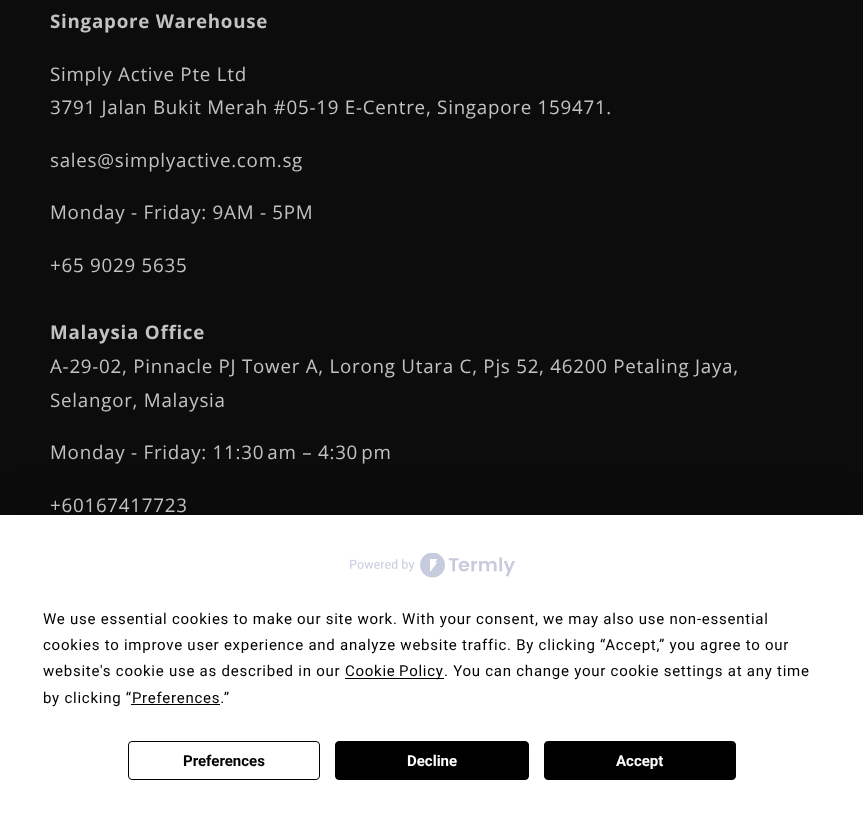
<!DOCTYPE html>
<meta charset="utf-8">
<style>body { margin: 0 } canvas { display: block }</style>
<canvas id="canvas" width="863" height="817"></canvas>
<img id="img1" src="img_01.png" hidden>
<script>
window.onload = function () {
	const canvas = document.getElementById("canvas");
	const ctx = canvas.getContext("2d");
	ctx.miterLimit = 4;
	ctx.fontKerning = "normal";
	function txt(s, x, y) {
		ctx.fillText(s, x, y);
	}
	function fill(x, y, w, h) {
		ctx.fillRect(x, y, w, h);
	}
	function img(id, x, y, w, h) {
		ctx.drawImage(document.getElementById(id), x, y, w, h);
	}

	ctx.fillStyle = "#0C0C0C";
	fill(0, 0, 863, 817);
	ctx.fillStyle = "rgba(0, 0, 0, 0.25)";
	ctx.filter = "blur(22px)";
	ctx.beginPath();
	ctx.rect(0, 515, 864, 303);
	ctx.fill();
	ctx.filter = "none";
	ctx.fillStyle = "#FFFFFF";
	fill(0, 515, 863, 302);
	img("img1", 350, 553, 165, 25);
	ctx.fillStyle = "#000000";
	fill(345, 678, 99, 1);
	fill(131, 704, 89, 1);
	ctx.beginPath();
	ctx.roundRect(128.5, 741.5, 191, 38, 3.5);
	ctx.strokeStyle = "#000000";
	ctx.stroke();
	ctx.beginPath();
	ctx.roundRect(335.5, 741.5, 193, 38, 3.5);
	ctx.fill();
	ctx.stroke();
	ctx.beginPath();
	ctx.roundRect(544.5, 741.5, 191, 38, 3.5);
	ctx.fill();
	ctx.stroke();
	ctx.letterSpacing = "0.75px";
	ctx.font = "bold 18.75px Open Sans";
	ctx.fillStyle = "#C2C2C2";
	txt("Singapore Warehouse", 50, 28);
	ctx.font = "18.75px Open Sans";
	txt("Simply Active Pte Ltd", 50, 81);
	txt("3791 Jalan Bukit Merah #05-19 E-Centre, Singapore 159471.", 50, 114);
	txt("sales@simplyactive.com.sg", 50, 167);
	txt("Monday - Friday: 9AM - 5PM", 50, 219);
	txt("+65 9029 5635", 50, 272);
	ctx.font = "bold 18.75px Open Sans";
	txt("Malaysia Office", 50, 339);
	ctx.font = "18.75px Open Sans";
	txt("A-29-02, Pinnacle PJ Tower A, Lorong Utara C, Pjs 52, 46200 Petaling Jaya,", 50, 373);
	txt("Selangor, Malaysia", 50, 407);
	txt("Monday - Friday: 11:30 am – 4:30 pm", 50, 459);
	txt("+60167417723", 50, 512);
	ctx.font = "15px Roboto";
	ctx.fillStyle = "#000000";
	txt("We use essential cookies to make our site work. With your consent, we may also use non-essential", 43, 624);
	txt("cookies to improve user experience and analyze website traffic. By clicking “Accept,” you agree to our", 43, 650);
	txt("website's cookie use as described in our", 43, 676);
	ctx.wordSpacing = "-1px";
	txt("Cookie Policy", 345, 676);
	ctx.wordSpacing = "0px";
	txt(". You can change your cookie settings at any time", 444, 676);
	txt("by clicking “Preferences.”", 43, 703);
	ctx.letterSpacing = "0px";
	ctx.font = "bold 15px Roboto";
	txt("Preferences", 183, 766);
	ctx.fillStyle = "#FFFFFF";
	txt("Decline", 407, 766);
	txt("Accept", 616, 766);
};
</script>
